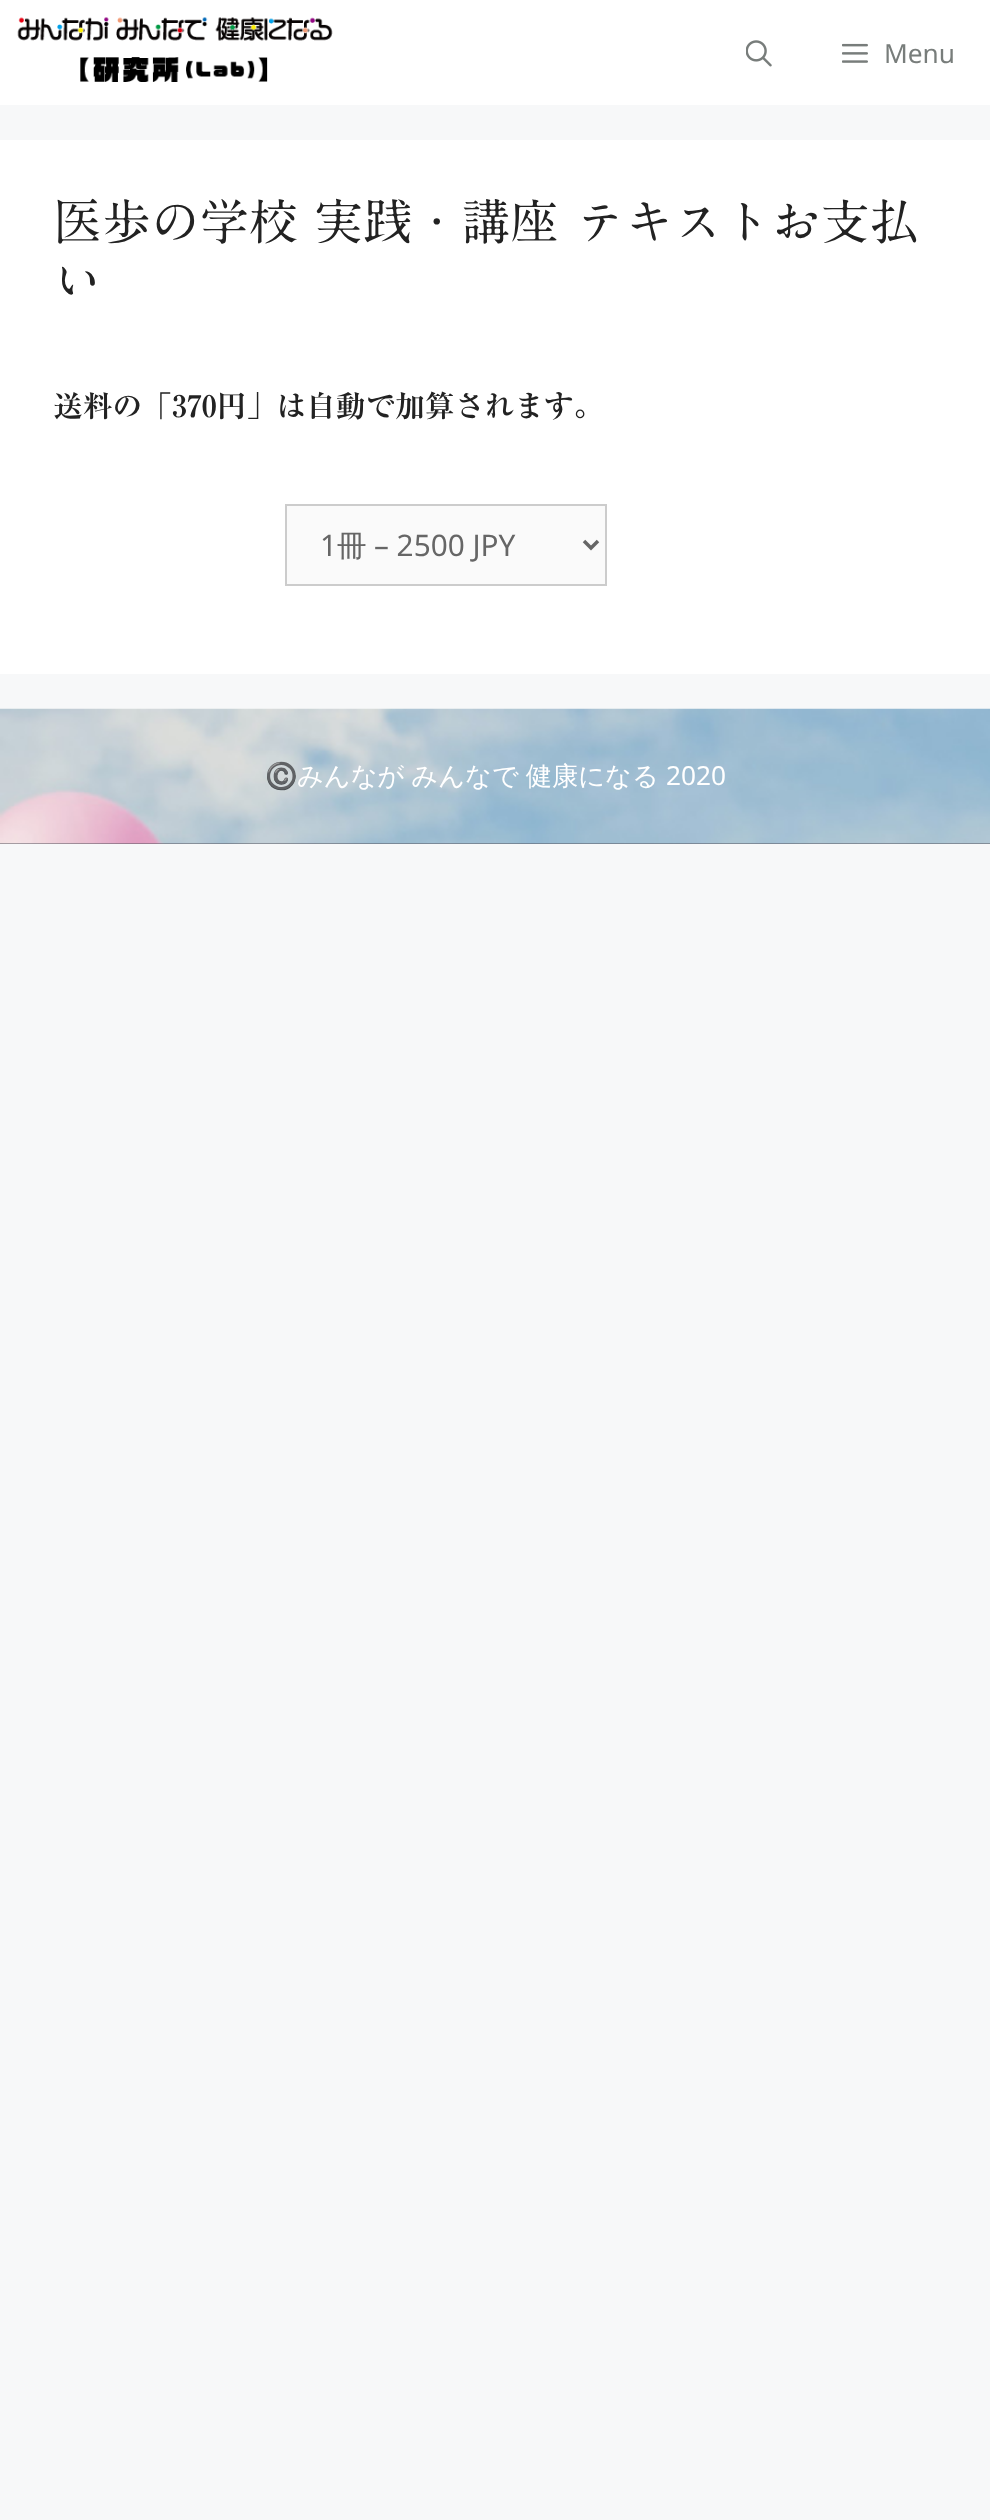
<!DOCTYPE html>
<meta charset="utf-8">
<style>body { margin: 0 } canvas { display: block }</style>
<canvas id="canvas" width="990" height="2520"></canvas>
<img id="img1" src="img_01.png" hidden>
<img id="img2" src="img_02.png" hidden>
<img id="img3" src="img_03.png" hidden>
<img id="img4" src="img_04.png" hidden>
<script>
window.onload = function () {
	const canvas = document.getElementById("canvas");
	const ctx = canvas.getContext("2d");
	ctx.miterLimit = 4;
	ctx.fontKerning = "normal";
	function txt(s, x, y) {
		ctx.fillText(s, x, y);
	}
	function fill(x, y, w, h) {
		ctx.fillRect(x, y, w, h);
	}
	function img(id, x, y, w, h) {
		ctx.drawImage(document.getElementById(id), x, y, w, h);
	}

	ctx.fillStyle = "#F7F8F9";
	fill(0, 0, 990, 2520);
	ctx.fillStyle = "#FFFFFF";
	fill(0, 0, 990, 105);
	img("img1", 17, 17, 316, 65);
	img("img2", 746, 40, 26, 27);
	img("img3", 842, 43, 26, 20);
	fill(0, 140, 990, 534);
	ctx.fillStyle = "#FAFAFA";
	ctx.beginPath();
	ctx.rect(286, 505, 320, 80);
	ctx.fill();
	ctx.strokeStyle = "#CCCCCC";
	ctx.lineWidth = 2;
	ctx.stroke();
	ctx.beginPath();
	ctx.moveTo(584, 541);
	ctx.lineTo(591, 548);
	ctx.lineTo(598, 541);
	ctx.strokeStyle = "#666666";
	ctx.lineWidth = 3.5;
	ctx.stroke();
	ctx.fillStyle = "#55555E";
	fill(0, 843, 990, 1);
	img("img4", 0, 708, 990, 136);
	ctx.font = "26.25px Noto Sans";
	ctx.fillStyle = "#787D7B";
	txt("Menu", 884, 63);
	ctx.font = "49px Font";
	ctx.fillStyle = "#222222";
	txt("医歩の学校 実践・講座 テキストお支払", 53, 240);
	txt("い", 53, 299);
	ctx.font = "500 29.75px Font";
	txt("送料の「370円」は自動で加算されます。", 53, 417);
	ctx.font = "29.75px Noto Sans";
	ctx.fillStyle = "#666666";
	txt("1", 320, 556);
	ctx.font = "500 29.75px WenQuanYi Zen Hei";
	txt("冊", 337, 556);
	ctx.font = "29.75px Noto Sans";
	txt("– 2500 JPY", 374, 556);
	ctx.font = "26.25px Noto Color Emoji";
	ctx.fillStyle = "#FFFFFF";
	txt("©️", 265, 785);
	ctx.wordSpacing = "-1px";
	ctx.font = "500 26.25px WenQuanYi Zen Hei";
	txt("みんなが みんなで 健康になる", 297, 785);
	ctx.wordSpacing = "0px";
	ctx.font = "26.25px Noto Sans";
	txt("2020", 666, 785);
};
</script>
